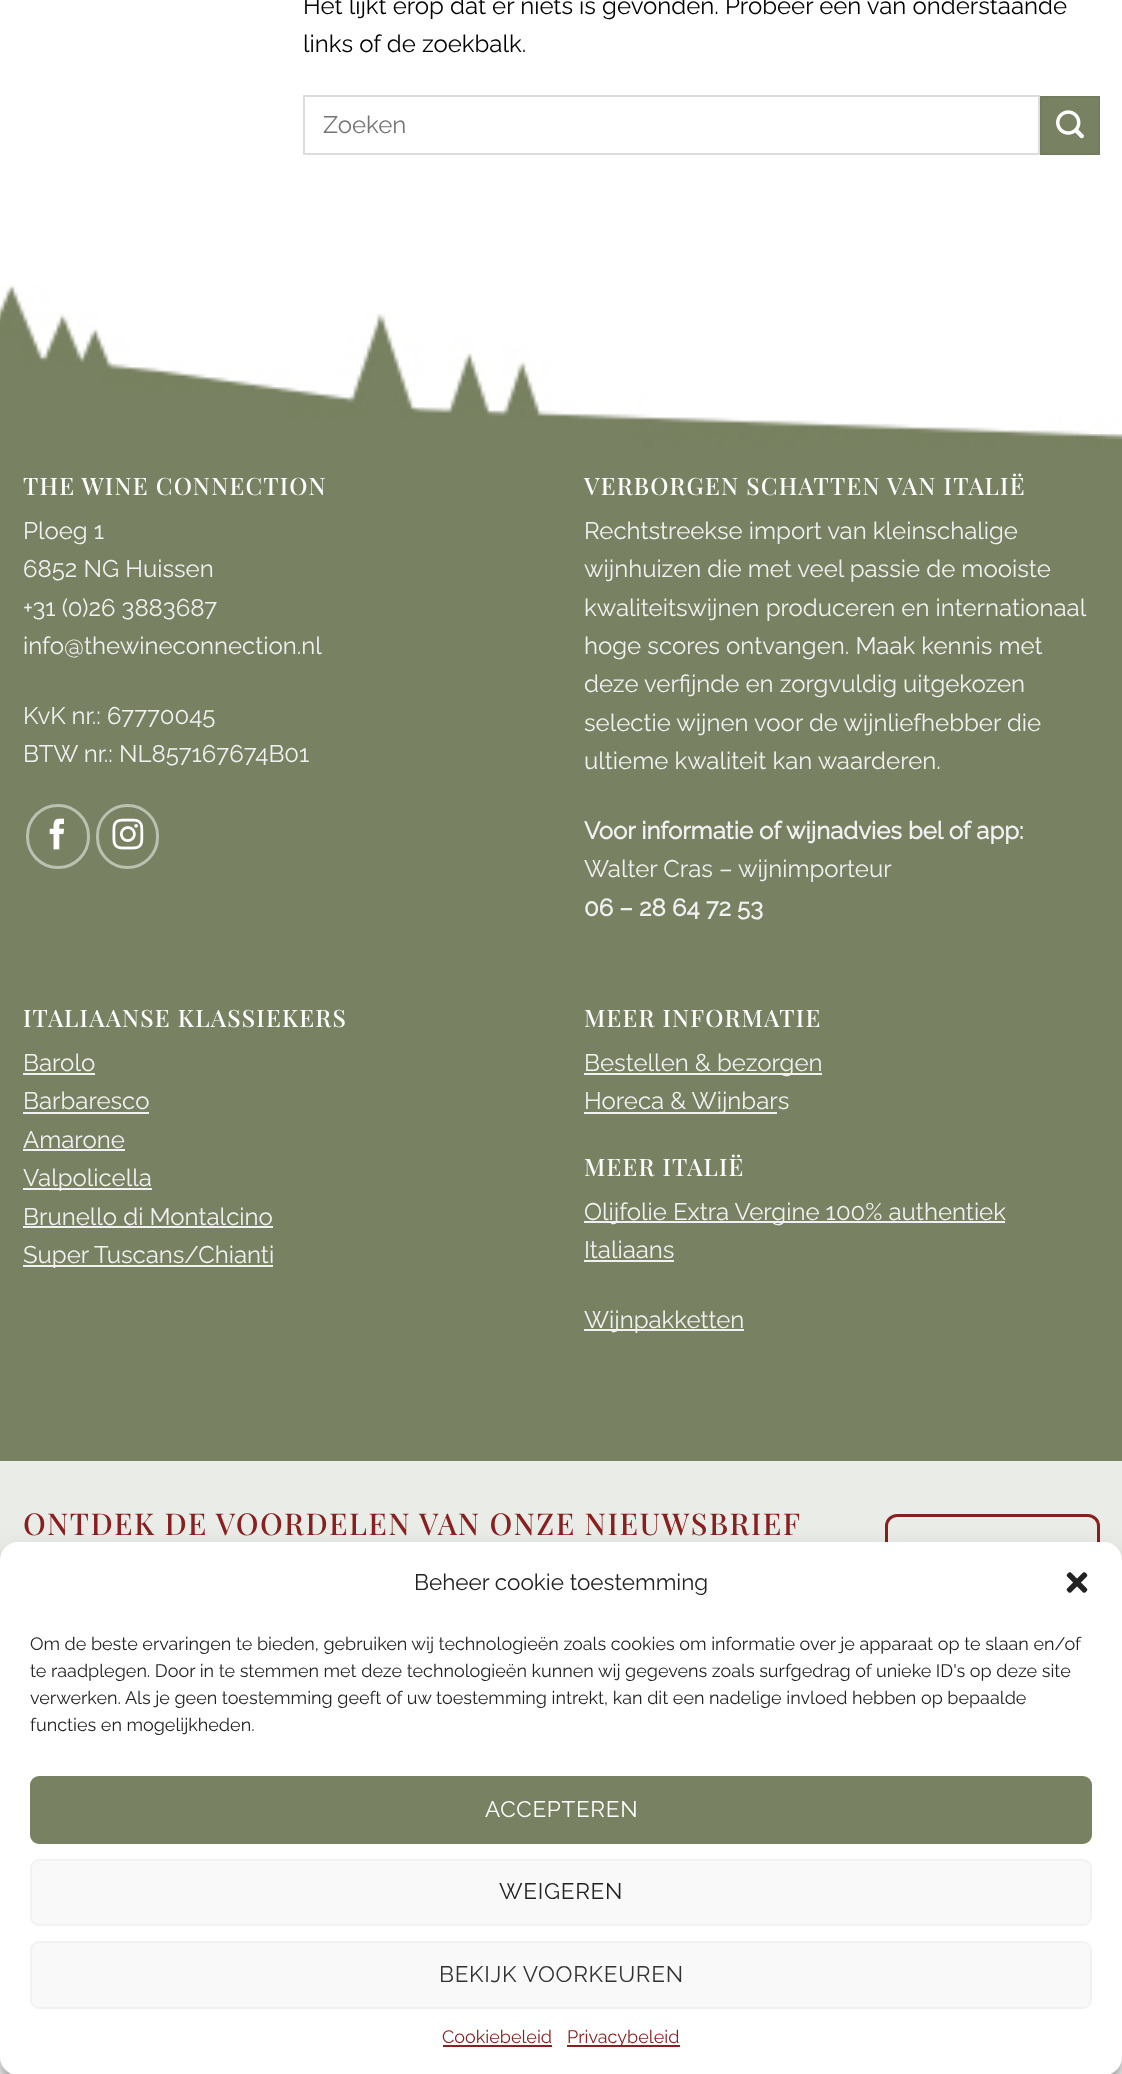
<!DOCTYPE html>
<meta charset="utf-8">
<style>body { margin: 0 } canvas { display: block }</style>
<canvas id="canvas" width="1122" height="2074"></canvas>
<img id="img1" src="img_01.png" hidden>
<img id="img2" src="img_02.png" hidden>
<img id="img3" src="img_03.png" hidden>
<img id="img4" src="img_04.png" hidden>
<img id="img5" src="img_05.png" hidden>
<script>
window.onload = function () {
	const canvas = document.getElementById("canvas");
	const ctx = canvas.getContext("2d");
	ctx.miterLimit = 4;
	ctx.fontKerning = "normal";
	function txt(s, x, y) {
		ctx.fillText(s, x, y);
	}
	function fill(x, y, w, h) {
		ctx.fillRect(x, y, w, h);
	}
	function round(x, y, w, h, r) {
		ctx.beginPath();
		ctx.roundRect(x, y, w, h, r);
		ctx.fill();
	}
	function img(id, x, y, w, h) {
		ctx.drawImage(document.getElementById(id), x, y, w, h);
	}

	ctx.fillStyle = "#FFFFFF";
	fill(0, 0, 1122, 2074);
	ctx.strokeStyle = "#DDDDDD";
	ctx.lineWidth = 2;
	ctx.strokeRect(304, 96, 735, 58);
	ctx.fillStyle = "#788162";
	ctx.beginPath();
	ctx.rect(1041, 97, 58, 57);
	ctx.fill();
	ctx.strokeStyle = "#727B5D";
	ctx.stroke();
	img("img1", 1056, 110, 28, 29);
	img("img2", 0, 284, 1122, 1177);
	ctx.beginPath();
	ctx.roundRect(27.5, 805.5, 61, 62, 30.5);
	ctx.strokeStyle = "#BCC0B1";
	ctx.lineWidth = 3;
	ctx.stroke();
	img("img3", 49, 818, 16, 32);
	ctx.beginPath();
	ctx.roundRect(97.5, 805.5, 60, 62, 30);
	ctx.stroke();
	img("img4", 112, 818, 32, 32);
	ctx.fillStyle = "#F1F1F1";
	fill(23, 1073, 72, 2);
	fill(23, 1112, 126, 2);
	fill(23, 1149, 102, 2);
	fill(23, 1188, 129, 2);
	fill(23, 1226, 250, 2);
	fill(23, 1265, 250, 2);
	fill(584, 1073, 238, 2);
	fill(584, 1112, 193, 2);
	fill(584, 1221, 421, 2);
	fill(584, 1260, 90, 2);
	fill(584, 1329, 160, 2);
	ctx.fillStyle = "#EAECE7";
	fill(0, 1461, 1122, 99);
	ctx.beginPath();
	ctx.roundRect(886.5, 1515.5, 212, 105, 10.5);
	ctx.strokeStyle = "#882020";
	ctx.stroke();
	ctx.fillStyle = "rgba(0, 0, 0, 0.23)";
	ctx.filter = "blur(4.5px)";
	ctx.beginPath();
	ctx.roundRect(0, 1551, 1122, 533, 18);
	ctx.fill();
	ctx.filter = "none";
	ctx.fillStyle = "rgba(0, 0, 0, 0.19)";
	ctx.filter = "blur(15px)";
	ctx.beginPath();
	ctx.roundRect(0, 1557, 1122, 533, 18);
	ctx.fill();
	ctx.filter = "none";
	ctx.fillStyle = "#FFFFFF";
	round(0, 1542, 1122, 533, 18);
	img("img5", 1066, 1572, 22, 21);
	ctx.fillStyle = "#788162";
	ctx.beginPath();
	ctx.roundRect(31, 1777, 1060, 66, 8);
	ctx.fill();
	ctx.strokeStyle = "#788162";
	ctx.lineWidth = 2;
	ctx.stroke();
	ctx.fillStyle = "#F9F9F9";
	ctx.beginPath();
	ctx.roundRect(31, 1860, 1060, 65, 8);
	ctx.fill();
	ctx.strokeStyle = "#F2F2F2";
	ctx.stroke();
	ctx.beginPath();
	ctx.roundRect(31, 1942, 1060, 66, 8);
	ctx.fill();
	ctx.stroke();
	ctx.fillStyle = "#882020";
	fill(443, 2045, 109, 2);
	fill(567, 2045, 113, 2);
	ctx.font = "100 24px Raleway";
	ctx.fillStyle = "#000000";
	txt("Het lijkt erop dat er niets is gevonden. Probeer een van onderstaande", 303, 14);
	txt("links of de zoekbalk.", 303, 52);
	ctx.fillStyle = "#757575";
	txt("Zoeken", 323, 133);
	ctx.letterSpacing = "1.2px";
	ctx.font = "500 24px Playfair Display";
	ctx.fillStyle = "#FFFFFF";
	txt("THE WINE CONNECTION", 23, 495);
	ctx.letterSpacing = "0px";
	ctx.font = "100 24px Raleway";
	ctx.fillStyle = "#F1F1F1";
	txt("Ploeg 1", 23, 539);
	txt("6852 NG Huissen", 23, 577);
	txt("+31 (0)26 3883687", 23, 616);
	txt("info@thewineconnection.nl", 23, 654);
	txt("KvK nr.: 67770045", 23, 724);
	txt("BTW nr.: NL857167674B01", 23, 762);
	ctx.letterSpacing = "1.2px";
	ctx.font = "500 24px Playfair Display";
	ctx.fillStyle = "#FFFFFF";
	txt("VERBORGEN SCHATTEN VAN ITALIË", 584, 495);
	ctx.letterSpacing = "0px";
	ctx.font = "100 24px Raleway";
	ctx.fillStyle = "#F1F1F1";
	txt("Rechtstreekse import van kleinschalige", 584, 539);
	txt("wijnhuizen die met veel passie de mooiste", 584, 577);
	txt("kwaliteitswijnen produceren en internationaal", 584, 616);
	txt("hoge scores ontvangen. Maak kennis met", 584, 654);
	txt("deze verfijnde en zorgvuldig uitgekozen", 584, 692);
	txt("selectie wijnen voor de wijnliefhebber die", 584, 731);
	txt("ultieme kwaliteit kan waarderen.", 584, 769);
	ctx.font = "bold 24px Raleway";
	txt("Voor informatie of wijnadvies bel of app:", 584, 839);
	ctx.font = "100 24px Raleway";
	txt("Walter Cras – wijnimporteur", 584, 877);
	ctx.font = "bold 24px Raleway";
	txt("06 – 28 64 72 53", 584, 916);
	ctx.letterSpacing = "1.2px";
	ctx.font = "500 24px Playfair Display";
	ctx.fillStyle = "#FFFFFF";
	txt("ITALIAANSE KLASSIEKERS", 23, 1027);
	ctx.letterSpacing = "0px";
	ctx.font = "100 24px Raleway";
	ctx.fillStyle = "#F1F1F1";
	txt("Barolo", 23, 1071);
	txt("Barbaresco", 23, 1109);
	txt("Amarone", 23, 1148);
	txt("Valpolicella", 23, 1186);
	txt("Brunello di Montalcino", 23, 1225);
	txt("Super Tuscans/Chianti", 23, 1263);
	ctx.letterSpacing = "1.2px";
	ctx.font = "500 24px Playfair Display";
	ctx.fillStyle = "#FFFFFF";
	txt("MEER INFORMATIE", 584, 1027);
	ctx.letterSpacing = "0px";
	ctx.font = "100 24px Raleway";
	ctx.fillStyle = "#F1F1F1";
	txt("Bestellen & bezorgen", 584, 1071);
	txt("Horeca & Wijnbars", 584, 1109);
	ctx.letterSpacing = "1.2px";
	ctx.font = "500 24px Playfair Display";
	ctx.fillStyle = "#FFFFFF";
	txt("MEER ITALIË", 584, 1176);
	ctx.letterSpacing = "0px";
	ctx.font = "100 24px Raleway";
	ctx.fillStyle = "#F1F1F1";
	txt("Olijfolie Extra Vergine 100% authentiek", 584, 1220);
	txt("Italiaans", 584, 1258);
	txt("Wijnpakketten", 584, 1328);
	ctx.letterSpacing = "1.5px";
	ctx.font = "500 30px Playfair Display";
	ctx.fillStyle = "#882020";
	txt("ONTDEK DE VOORDELEN VAN ONZE NIEUWSBRIEF", 23, 1535);
	ctx.letterSpacing = "0px";
	ctx.font = "100 22.5px Raleway";
	ctx.fillStyle = "#222222";
	txt("Beheer cookie toestemming", 414, 1590);
	ctx.font = "100 18px Raleway";
	txt("Om de beste ervaringen te bieden, gebruiken wij technologieën zoals cookies om informatie over je apparaat op te slaan en/of", 30, 1650);
	txt("te raadplegen. Door in te stemmen met deze technologieën kunnen wij gegevens zoals surfgedrag of unieke ID's op deze site", 30, 1677);
	txt("verwerken. Als je geen toestemming geeft of uw toestemming intrekt, kan dit een nadelige invloed hebben op bepaalde", 30, 1704);
	txt("functies en mogelijkheden.", 30, 1731);
	ctx.letterSpacing = "0.7px";
	ctx.font = "100 22.5px Raleway";
	ctx.fillStyle = "#FFFFFF";
	txt("ACCEPTEREN", 485, 1817);
	ctx.fillStyle = "#222222";
	txt("WEIGEREN", 499, 1899);
	ctx.fillStyle = "#333333";
	txt("BEKIJK VOORKEUREN", 439, 1982);
	ctx.letterSpacing = "0px";
	ctx.font = "100 18px Raleway";
	ctx.fillStyle = "#882020";
	txt("Cookiebeleid", 442, 2043);
	txt("Privacybeleid", 567, 2043);
};
</script>
